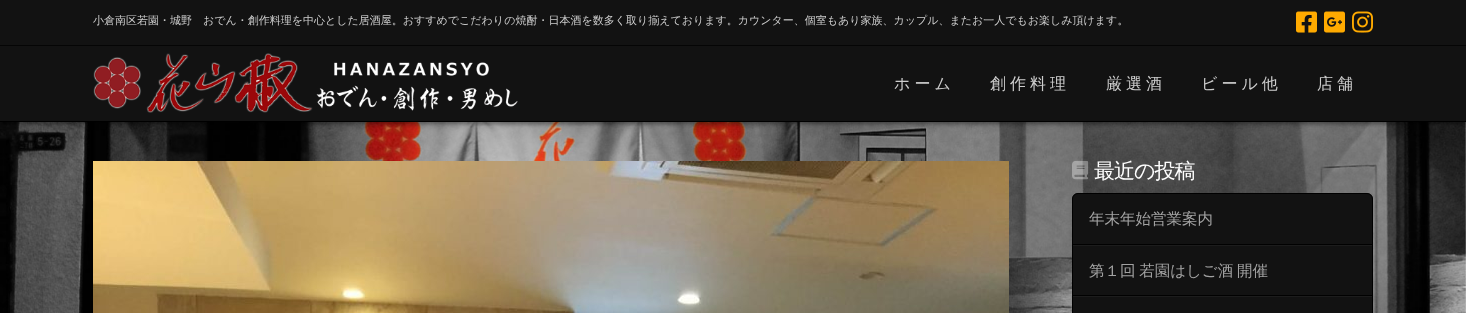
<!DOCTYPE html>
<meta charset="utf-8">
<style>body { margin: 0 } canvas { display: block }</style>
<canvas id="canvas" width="1466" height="313"></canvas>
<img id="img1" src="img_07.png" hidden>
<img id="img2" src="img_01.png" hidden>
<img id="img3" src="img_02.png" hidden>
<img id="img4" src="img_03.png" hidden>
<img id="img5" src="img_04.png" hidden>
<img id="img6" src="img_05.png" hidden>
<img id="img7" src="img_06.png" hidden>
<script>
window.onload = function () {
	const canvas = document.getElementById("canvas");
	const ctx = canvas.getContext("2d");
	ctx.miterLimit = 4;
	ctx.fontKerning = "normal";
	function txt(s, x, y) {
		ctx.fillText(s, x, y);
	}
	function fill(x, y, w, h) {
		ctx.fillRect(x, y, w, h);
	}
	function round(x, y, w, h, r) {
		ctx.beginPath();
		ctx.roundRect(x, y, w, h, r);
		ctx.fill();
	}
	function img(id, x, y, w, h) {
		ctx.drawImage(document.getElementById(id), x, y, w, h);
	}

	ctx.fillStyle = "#FFFFFF";
	fill(0, 0, 1466, 313);
	img("img1", 0, 122, 1466, 191);
	ctx.fillStyle = "rgba(0, 0, 0, 0.47)";
	ctx.filter = "blur(2.5px)";
	ctx.beginPath();
	ctx.rect(0, 48, 1466, 76);
	ctx.fill();
	ctx.filter = "none";
	ctx.fillStyle = "#121212";
	fill(0, 0, 1466, 45);
	ctx.fillStyle = "#050505";
	fill(0, 45, 1466, 1);
	img("img2", 1296, 11, 21, 22);
	img("img3", 1324, 11, 21, 22);
	img("img4", 1352, 11, 21, 22);
	ctx.fillStyle = "#121212";
	fill(0, 46, 1466, 75);
	ctx.fillStyle = "#000000";
	fill(0, 121, 1466, 1);
	img("img5", 93, 53, 425, 60);
	img("img6", 93, 161, 916, 152);
	img("img7", 1072, 160, 17, 20);
	ctx.fillStyle = "#121212";
	round(1072, 193, 301, 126, 6);
	ctx.beginPath();
	ctx.roundRect(1072.5, 193.5, 300, 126, 5.5);
	ctx.strokeStyle = "rgba(0, 0, 0, 0.95)";
	ctx.stroke();
	ctx.fillStyle = "#1C1C1C";
	fill(1073, 245, 299, 1);
	ctx.fillStyle = "#010101";
	fill(1073, 244, 299, 1);
	ctx.fillStyle = "#1C1C1C";
	fill(1073, 296, 299, 1);
	ctx.fillStyle = "#010101";
	fill(1073, 295, 299, 1);
	ctx.font = "500 11px WenQuanYi Zen Hei";
	ctx.fillStyle = "#CDCDCD";
	txt("小倉南区若園・城野　おでん・創作料理を中心とした居酒屋。おすすめでこだわりの焼酎・日本酒を数多く取り揃えております。カウンター、個室もあり家族、カップル、またお一人でもお楽しみ頂けます。", 93, 24);
	ctx.letterSpacing = "4px";
	ctx.font = "500 16px WenQuanYi Zen Hei";
	txt("ホーム", 894, 89);
	txt("創作料理", 990, 89);
	txt("厳選酒", 1106, 89);
	txt("ビール他", 1201, 89);
	txt("店舗", 1317, 89);
	ctx.letterSpacing = "-1px";
	ctx.font = "500 21px WenQuanYi Zen Hei";
	ctx.fillStyle = "#FFFFFF";
	txt("最近の投稿", 1094, 178);
	ctx.letterSpacing = "0px";
	ctx.font = "500 15.5px WenQuanYi Zen Hei";
	ctx.fillStyle = "#A2A2A2";
	txt("年末年始営業案内", 1089, 224);
	ctx.wordSpacing = "-1px";
	txt("第１回 若園はしご酒 開催", 1089, 276);
};
</script>
